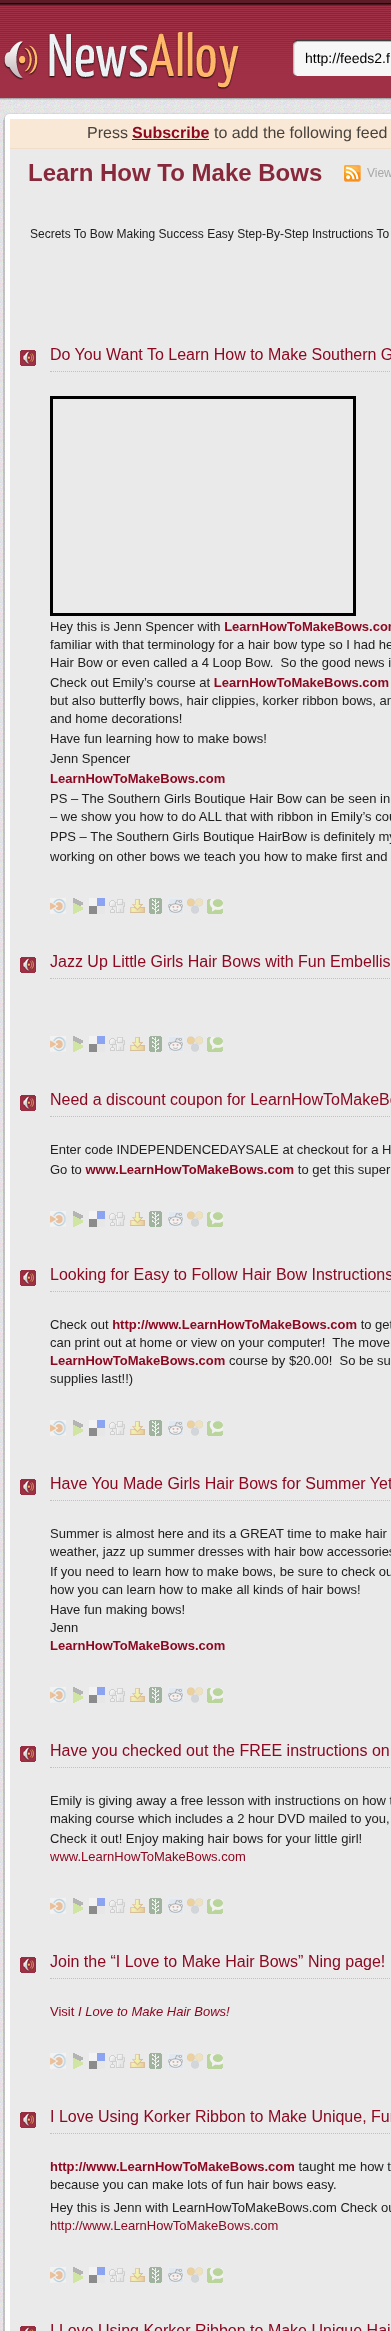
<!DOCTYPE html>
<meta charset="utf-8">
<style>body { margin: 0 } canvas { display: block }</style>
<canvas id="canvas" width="391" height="2331"></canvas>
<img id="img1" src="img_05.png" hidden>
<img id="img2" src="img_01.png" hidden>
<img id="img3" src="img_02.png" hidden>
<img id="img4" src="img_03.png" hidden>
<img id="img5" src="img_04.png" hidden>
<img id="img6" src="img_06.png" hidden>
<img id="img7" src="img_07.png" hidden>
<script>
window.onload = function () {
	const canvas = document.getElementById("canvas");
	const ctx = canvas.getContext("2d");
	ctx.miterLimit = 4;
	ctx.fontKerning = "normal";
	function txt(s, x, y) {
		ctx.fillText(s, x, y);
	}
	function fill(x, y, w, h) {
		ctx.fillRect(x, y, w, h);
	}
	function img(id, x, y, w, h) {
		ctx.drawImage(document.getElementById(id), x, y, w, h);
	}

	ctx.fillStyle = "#FFFFFF";
	fill(0, 0, 391, 2331);
	img("img1", 0, 98, 391, 2233);
	img("img2", 0, 0, 391, 100);
	img("img3", 3, 32, 237, 58);
	img("img4", 293, 40, 4, 36);
	img("img5", 297, 40, 94, 36);
	ctx.fillStyle = "rgba(0, 0, 0, 0.05)";
	fill(3, 113, 388, 1);
	ctx.fillStyle = "rgba(0, 0, 0, 0.15)";
	fill(3, 114, 2, 2217);
	ctx.fillStyle = "#FFFFFF";
	fill(5, 114, 386, 2217);
	img("img6", 3, 113, 7, 7);
	ctx.fillStyle = "#FAE8D6";
	fill(10, 119, 381, 29);
	ctx.fillStyle = "#F0DDCA";
	fill(10, 148, 381, 1);
	ctx.fillStyle = "#8C0922";
	fill(132, 139, 77, 1);
	img("img7", 10, 149, 381, 2182);
	ctx.font = "14px Liberation Sans";
	ctx.fillStyle = "#000000";
	txt("http://feeds2.f", 305, 63);
	ctx.font = "16px Liberation Sans";
	ctx.fillStyle = "#48423D";
	txt("Press", 87, 138);
	ctx.font = "bold 16px Liberation Sans";
	ctx.fillStyle = "#8C0922";
	txt("Subscribe", 132, 138);
	ctx.font = "16px Liberation Sans";
	ctx.fillStyle = "#48423D";
	txt("to add the following feed", 214, 138);
};
</script>
